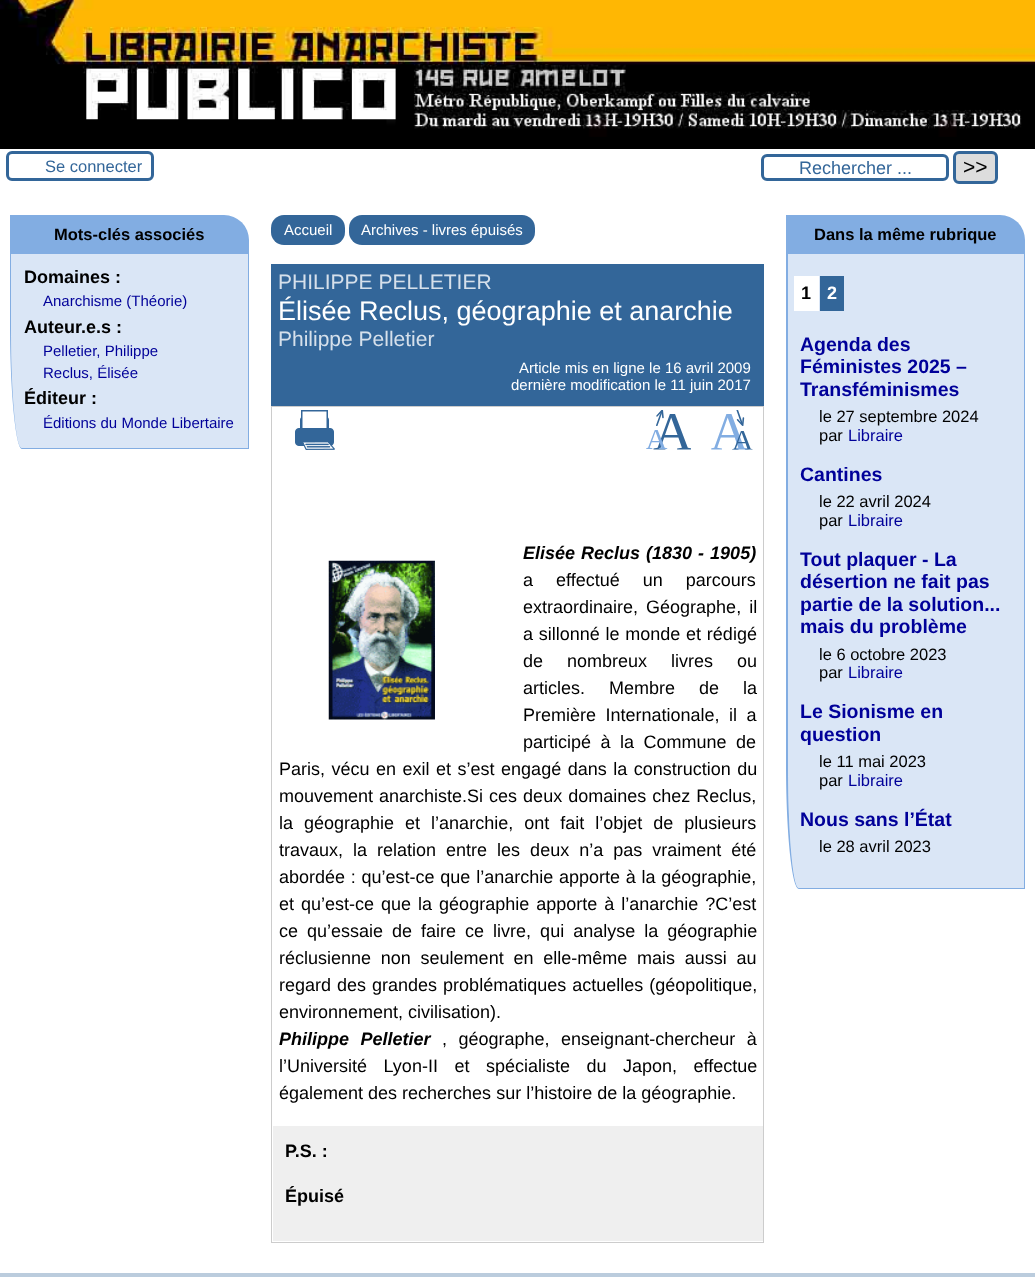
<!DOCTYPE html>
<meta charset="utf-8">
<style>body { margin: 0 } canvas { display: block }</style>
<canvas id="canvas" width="1035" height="1277"></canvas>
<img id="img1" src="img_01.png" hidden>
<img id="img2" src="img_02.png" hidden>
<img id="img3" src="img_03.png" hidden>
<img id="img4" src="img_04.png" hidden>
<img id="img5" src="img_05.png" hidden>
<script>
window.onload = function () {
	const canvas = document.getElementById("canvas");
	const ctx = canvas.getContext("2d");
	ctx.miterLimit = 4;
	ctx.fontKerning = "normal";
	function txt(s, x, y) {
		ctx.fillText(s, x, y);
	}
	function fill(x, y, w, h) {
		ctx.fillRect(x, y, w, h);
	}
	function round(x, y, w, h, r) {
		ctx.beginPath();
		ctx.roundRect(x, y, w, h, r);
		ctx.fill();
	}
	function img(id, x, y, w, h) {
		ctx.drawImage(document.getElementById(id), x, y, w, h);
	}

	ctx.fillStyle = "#FFFFFF";
	fill(0, 0, 1035, 1277);
	ctx.fillStyle = "#000000";
	fill(0, 137, 1035, 12);
	img("img1", 0, 0, 1035, 137);
	ctx.beginPath();
	ctx.roundRect(7.5, 152.5, 145, 27, 4.5);
	ctx.strokeStyle = "#336699";
	ctx.lineWidth = 3;
	ctx.stroke();
	ctx.beginPath();
	ctx.roundRect(762.5, 155.5, 185, 24, 4.5);
	ctx.stroke();
	ctx.fillStyle = "#DDDDDD";
	ctx.beginPath();
	ctx.roundRect(954.5, 152.5, 42, 30, 4.5);
	ctx.fill();
	ctx.stroke();
	ctx.fillStyle = "#82ADE2";
	ctx.beginPath();
	ctx.roundRect(10, 215, 239, 39, [0, 25, 0, 0]);
	ctx.fill();
	ctx.fillStyle = "#DAE6F6";
	ctx.beginPath();
	ctx.moveTo(11, 254);
	ctx.lineTo(248, 254);
	ctx.lineTo(248, 448);
	ctx.lineTo(22, 448);
	ctx.bezierCurveTo(16, 448, 11, 392, 11, 324);
	ctx.closePath();
	ctx.fill();
	ctx.fillStyle = "#82ADE2";
	ctx.beginPath();
	ctx.moveTo(10, 254);
	ctx.lineTo(249, 254);
	ctx.lineTo(249, 449);
	ctx.lineTo(22, 449);
	ctx.bezierCurveTo(16, 449, 10, 393, 10, 324);
	ctx.closePath();
	ctx.moveTo(11, 254);
	ctx.lineTo(248, 254);
	ctx.lineTo(248, 448);
	ctx.lineTo(22, 448);
	ctx.bezierCurveTo(16, 448, 11, 392, 11, 324);
	ctx.closePath();
	ctx.fill("evenodd");
	ctx.fillStyle = "#336699";
	round(271, 215, 74, 30, 13);
	round(349, 215, 186, 30, 13);
	fill(271, 264, 493, 142);
	ctx.strokeStyle = "#CCCCCC";
	ctx.lineWidth = 1;
	ctx.strokeRect(271.5, 406.5, 492, 836);
	img("img2", 295, 410, 40, 40);
	img("img3", 646, 410, 45, 40);
	img("img4", 711, 410, 42, 40);
	img("img5", 328, 560, 107, 160);
	ctx.fillStyle = "#EFEFEF";
	fill(273, 1126, 490, 115);
	ctx.fillStyle = "#82ADE2";
	ctx.beginPath();
	ctx.roundRect(786, 215, 239, 39, [0, 25, 0, 0]);
	ctx.fill();
	ctx.fillStyle = "#DAE6F6";
	ctx.beginPath();
	ctx.moveTo(788, 254);
	ctx.lineTo(1024, 254);
	ctx.lineTo(1024, 888);
	ctx.lineTo(799, 888);
	ctx.bezierCurveTo(793, 888, 788, 832, 788, 764);
	ctx.closePath();
	ctx.fill();
	ctx.fillStyle = "#82ADE2";
	ctx.beginPath();
	ctx.moveTo(786, 254);
	ctx.lineTo(1025, 254);
	ctx.lineTo(1025, 889);
	ctx.lineTo(799, 889);
	ctx.bezierCurveTo(792, 889, 786, 833, 786, 764);
	ctx.closePath();
	ctx.moveTo(788, 254);
	ctx.lineTo(1024, 254);
	ctx.lineTo(1024, 888);
	ctx.lineTo(799, 888);
	ctx.bezierCurveTo(793, 888, 788, 832, 788, 764);
	ctx.closePath();
	ctx.fill("evenodd");
	ctx.fillStyle = "#FFFFFF";
	fill(794, 276, 25, 35);
	ctx.fillStyle = "#336699";
	fill(820, 276, 24, 35);
	ctx.fillStyle = "#BBCCDD";
	fill(0, 1273, 1035, 4);
	ctx.font = "16.5px Liberation Sans";
	ctx.fillStyle = "#336699";
	txt("Se connecter", 45, 172);
	ctx.font = "18px Liberation Sans";
	txt("Rechercher ...", 799, 174);
	ctx.font = "21px Liberation Sans";
	ctx.fillStyle = "#000000";
	txt(">>", 963, 174);
	ctx.font = "bold 16.5px Liberation Sans";
	txt("Mots-clés associés", 54, 240);
	ctx.font = "bold 18px Liberation Sans";
	txt("Domaines :", 24, 283);
	ctx.font = "15px Liberation Sans";
	ctx.fillStyle = "#000099";
	txt("Anarchisme (Théorie)", 43, 306);
	ctx.font = "bold 18px Liberation Sans";
	ctx.fillStyle = "#000000";
	txt("Auteur.e.s :", 24, 333);
	ctx.font = "15px Liberation Sans";
	ctx.fillStyle = "#000099";
	txt("Pelletier, Philippe", 43, 356);
	txt("Reclus, Élisée", 43, 378);
	ctx.font = "bold 18px Liberation Sans";
	ctx.fillStyle = "#000000";
	txt("Éditeur :", 24, 404);
	ctx.font = "15px Liberation Sans";
	ctx.fillStyle = "#000099";
	txt("Éditions du Monde Libertaire", 43, 428);
	ctx.fillStyle = "#FFFFFF";
	txt("Accueil", 284, 235);
	txt("Archives - livres épuisés", 361, 235);
	ctx.font = "21px Liberation Sans";
	ctx.fillStyle = "#D6E0EB";
	txt("PHILIPPE PELLETIER", 278, 289);
	ctx.font = "27px Liberation Sans";
	ctx.fillStyle = "#FFFFFF";
	txt("Élisée Reclus, géographie et anarchie", 278, 320);
	ctx.font = "21px Liberation Sans";
	ctx.fillStyle = "#D6E0EB";
	txt("Philippe Pelletier", 278, 346);
	ctx.font = "15px Liberation Sans";
	ctx.fillStyle = "#FFFFFF";
	txt("Article mis en ligne le 16 avril 2009", 519, 373);
	txt("dernière modification le 11 juin 2017", 511, 390);
	ctx.wordSpacing = "1px";
	ctx.font = "italic bold 18px Liberation Sans";
	ctx.fillStyle = "#000000";
	txt("Elisée Reclus (1830 - 1905)", 523, 559);
	ctx.wordSpacing = "18px";
	ctx.font = "18px Liberation Sans";
	txt("a effectué un parcours", 523, 586);
	ctx.wordSpacing = "3px";
	txt("extraordinaire, Géographe, il", 523, 613);
	ctx.wordSpacing = "0.75px";
	txt("a sillonné le monde et rédigé", 523, 640);
	ctx.wordSpacing = "19px";
	txt("de nombreux livres ou", 523, 667);
	txt("articles. Membre de la", 523, 694);
	ctx.wordSpacing = "4.5px";
	txt("Première Internationale, il a", 523, 721);
	txt("participé à la Commune de", 523, 748);
	ctx.wordSpacing = "1.5px";
	txt("Paris, vécu en exil et s’est engagé dans la construction du", 279, 775);
	ctx.wordSpacing = "1px";
	txt("mouvement anarchiste.Si ces deux domaines chez Reclus,", 279, 802);
	ctx.wordSpacing = "6px";
	txt("la géographie et l’anarchie, ont fait l’objet de plusieurs", 279, 829);
	ctx.wordSpacing = "5px";
	txt("travaux, la relation entre les deux n’a pas vraiment été", 279, 856);
	ctx.wordSpacing = "0.75px";
	txt("abordée : qu’est-ce que l’anarchie apporte à la géographie,", 279, 883);
	ctx.wordSpacing = "2px";
	txt("et qu’est-ce que la géographie apporte à l’anarchie ?C’est", 279, 910);
	ctx.wordSpacing = "4px";
	txt("ce qu’essaie de faire ce livre, qui analyse la géographie", 279, 937);
	ctx.wordSpacing = "4.75px";
	txt("réclusienne non seulement en elle-même mais aussi au", 279, 964);
	ctx.wordSpacing = "1px";
	txt("regard des grandes problématiques actuelles (géopolitique,", 279, 991);
	ctx.wordSpacing = "0px";
	txt("environnement, civilisation).", 279, 1018);
	ctx.wordSpacing = "6.5px";
	ctx.font = "italic bold 18px Liberation Sans";
	txt("Philippe Pelletier", 279, 1045);
	ctx.font = "18px Liberation Sans";
	txt(", géographe, enseignant-chercheur à", 442, 1045);
	ctx.wordSpacing = "11.5px";
	txt("l’Université Lyon-II et spécialiste du Japon, effectue", 279, 1072);
	ctx.wordSpacing = "0px";
	txt("également des recherches sur l’histoire de la géographie.", 279, 1099);
	ctx.font = "bold 18px Liberation Sans";
	txt("P.S. :", 285, 1157);
	txt("Épuisé", 285, 1202);
	ctx.font = "bold 16.5px Liberation Sans";
	txt("Dans la même rubrique", 814, 240);
	ctx.font = "bold 18px Liberation Sans";
	txt("1", 801, 299);
	ctx.fillStyle = "#FFFFFF";
	txt("2", 827, 299);
	ctx.font = "bold 19.5px Liberation Sans";
	ctx.fillStyle = "#000099";
	txt("Agenda des", 800, 351);
	txt("Féministes 2025 –", 800, 373);
	txt("Transféminismes", 800, 396);
	ctx.font = "16.5px Liberation Sans";
	ctx.fillStyle = "#000000";
	txt("le 27 septembre 2024", 819, 422);
	txt("par", 819, 441);
	ctx.fillStyle = "#000099";
	txt("Libraire", 848, 441);
	ctx.font = "bold 19.5px Liberation Sans";
	txt("Cantines", 800, 481);
	ctx.font = "16.5px Liberation Sans";
	ctx.fillStyle = "#000000";
	txt("le 22 avril 2024", 819, 507);
	txt("par", 819, 526);
	ctx.fillStyle = "#000099";
	txt("Libraire", 848, 526);
	ctx.font = "bold 19.5px Liberation Sans";
	txt("Tout plaquer - La", 800, 566);
	txt("désertion ne fait pas", 800, 588);
	txt("partie de la solution...", 800, 611);
	txt("mais du problème", 800, 633);
	ctx.font = "16.5px Liberation Sans";
	ctx.fillStyle = "#000000";
	txt("le 6 octobre 2023", 819, 660);
	txt("par", 819, 678);
	ctx.fillStyle = "#000099";
	txt("Libraire", 848, 678);
	ctx.font = "bold 19.5px Liberation Sans";
	txt("Le Sionisme en", 800, 718);
	txt("question", 800, 741);
	ctx.font = "16.5px Liberation Sans";
	ctx.fillStyle = "#000000";
	txt("le 11 mai 2023", 819, 767);
	txt("par", 819, 786);
	ctx.fillStyle = "#000099";
	txt("Libraire", 848, 786);
	ctx.font = "bold 19.5px Liberation Sans";
	txt("Nous sans l’État", 800, 826);
	ctx.font = "16.5px Liberation Sans";
	ctx.fillStyle = "#000000";
	txt("le 28 avril 2023", 819, 852);
};
</script>
